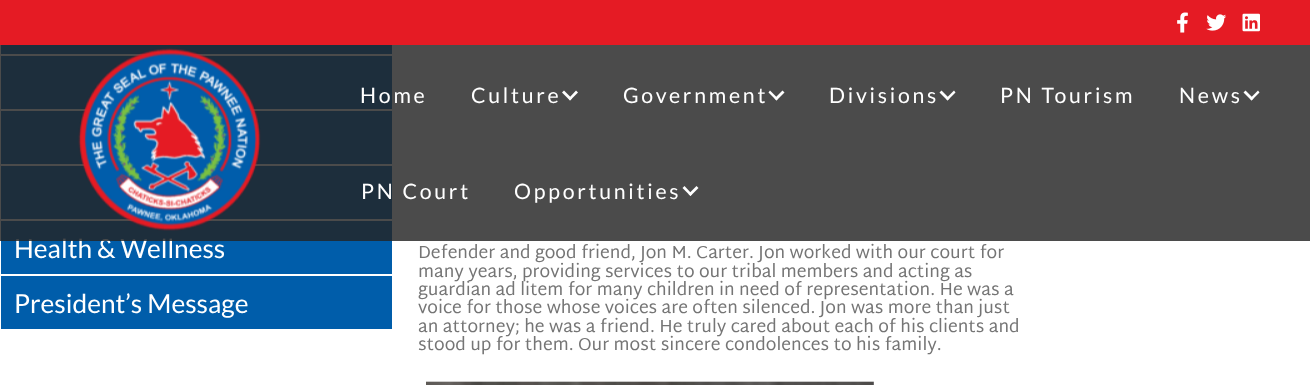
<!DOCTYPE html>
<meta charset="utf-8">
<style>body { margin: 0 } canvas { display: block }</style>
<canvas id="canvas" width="1310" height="385"></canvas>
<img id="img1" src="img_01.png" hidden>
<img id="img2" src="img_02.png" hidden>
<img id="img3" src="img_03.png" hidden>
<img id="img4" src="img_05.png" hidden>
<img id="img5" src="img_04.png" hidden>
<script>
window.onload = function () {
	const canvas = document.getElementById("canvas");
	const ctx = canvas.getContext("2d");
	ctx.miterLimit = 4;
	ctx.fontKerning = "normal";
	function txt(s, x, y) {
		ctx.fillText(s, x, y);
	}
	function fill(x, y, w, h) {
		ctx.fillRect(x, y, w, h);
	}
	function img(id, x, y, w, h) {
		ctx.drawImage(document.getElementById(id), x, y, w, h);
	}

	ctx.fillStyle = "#FFFFFF";
	fill(0, 0, 1310, 385);
	ctx.fillStyle = "#E51B24";
	fill(0, 0, 1310, 45);
	img("img1", 1177, 12, 11, 21);
	img("img2", 1206, 14, 21, 17);
	img("img3", 1242, 13, 18, 19);
	ctx.fillStyle = "#005DAA";
	fill(1, 45, 391, 9);
	fill(1, 56, 391, 53);
	fill(1, 111, 391, 53);
	fill(1, 166, 391, 53);
	fill(1, 221, 391, 53);
	fill(1, 276, 391, 53);
	img("img4", 426, 381, 448, 4);
	ctx.font = "26.25px Lato";
	ctx.fillStyle = "#FFFFFF";
	txt("Health & Wellness", 14, 258);
	ctx.fillStyle = "rgba(35, 35, 35, 0.82)";
	fill(0, 45, 1310, 196);
	ctx.fillStyle = "#FFFFFF";
	ctx.beginPath();
	ctx.moveTo(696.5, 186);
	ctx.lineTo(698.5, 188);
	ctx.lineTo(690.5, 196);
	ctx.lineTo(688.5, 194);
	ctx.closePath();
	ctx.fill();
	ctx.beginPath();
	ctx.moveTo(684.5, 186);
	ctx.lineTo(692, 194);
	ctx.lineTo(690.5, 196);
	ctx.lineTo(682.5, 188);
	ctx.closePath();
	ctx.fill();
	ctx.beginPath();
	ctx.moveTo(1258, 90.5);
	ctx.lineTo(1259.5, 92.5);
	ctx.lineTo(1251.5, 100.5);
	ctx.lineTo(1250, 98.5);
	ctx.closePath();
	ctx.fill();
	ctx.beginPath();
	ctx.moveTo(1245.5, 90.5);
	ctx.lineTo(1253.5, 98.5);
	ctx.lineTo(1251.5, 100.5);
	ctx.lineTo(1243.5, 92.5);
	ctx.closePath();
	ctx.fill();
	ctx.beginPath();
	ctx.moveTo(954, 90.5);
	ctx.lineTo(955.5, 92.5);
	ctx.lineTo(947.5, 100.5);
	ctx.lineTo(946, 98.5);
	ctx.closePath();
	ctx.fill();
	ctx.beginPath();
	ctx.moveTo(941.5, 90.5);
	ctx.lineTo(949.5, 98.5);
	ctx.lineTo(947.5, 100.5);
	ctx.lineTo(939.5, 92.5);
	ctx.closePath();
	ctx.fill();
	ctx.beginPath();
	ctx.moveTo(782.5, 90.5);
	ctx.lineTo(784.5, 92.5);
	ctx.lineTo(776.5, 100.5);
	ctx.lineTo(774.5, 98.5);
	ctx.closePath();
	ctx.fill();
	ctx.beginPath();
	ctx.moveTo(770, 90.5);
	ctx.lineTo(778, 98.5);
	ctx.lineTo(776.5, 100.5);
	ctx.lineTo(768.5, 92.5);
	ctx.closePath();
	ctx.fill();
	ctx.beginPath();
	ctx.moveTo(576, 90.5);
	ctx.lineTo(578, 92.5);
	ctx.lineTo(570, 100.5);
	ctx.lineTo(568.5, 98.5);
	ctx.closePath();
	ctx.fill();
	ctx.beginPath();
	ctx.moveTo(564, 90.5);
	ctx.lineTo(572, 98.5);
	ctx.lineTo(570, 100.5);
	ctx.lineTo(562, 92.5);
	ctx.closePath();
	ctx.fill();
	ctx.letterSpacing = "2.75px";
	ctx.font = "21.25px Lato";
	txt("Opportunities", 514, 199);
	txt("PN Court", 361, 199);
	txt("News", 1179, 103);
	txt("PN Tourism", 1000, 103);
	txt("Divisions", 829, 103);
	txt("Government", 623, 103);
	txt("Culture", 471, 103);
	txt("Home", 360, 103);
	img("img5", 78, 48, 183, 183);
	ctx.letterSpacing = "0px";
	ctx.font = "26.25px Lato";
	txt("President’s Message", 14, 313);
	ctx.font = "17.5px Martel Sans";
	ctx.fillStyle = "#757575";
	txt("Defender and good friend, Jon M. Carter. Jon worked with our court for", 418, 258);
	txt("many years, providing services to our tribal members and acting as", 418, 277);
	txt("guardian ad litem for many children in need of representation. He was a", 418, 295);
	txt("voice for those whose voices are often silenced. Jon was more than just", 418, 313);
	txt("an attorney; he was a friend. He truly cared about each of his clients and", 418, 332);
	txt("stood up for them. Our most sincere condolences to his family.", 418, 350);
};
</script>
